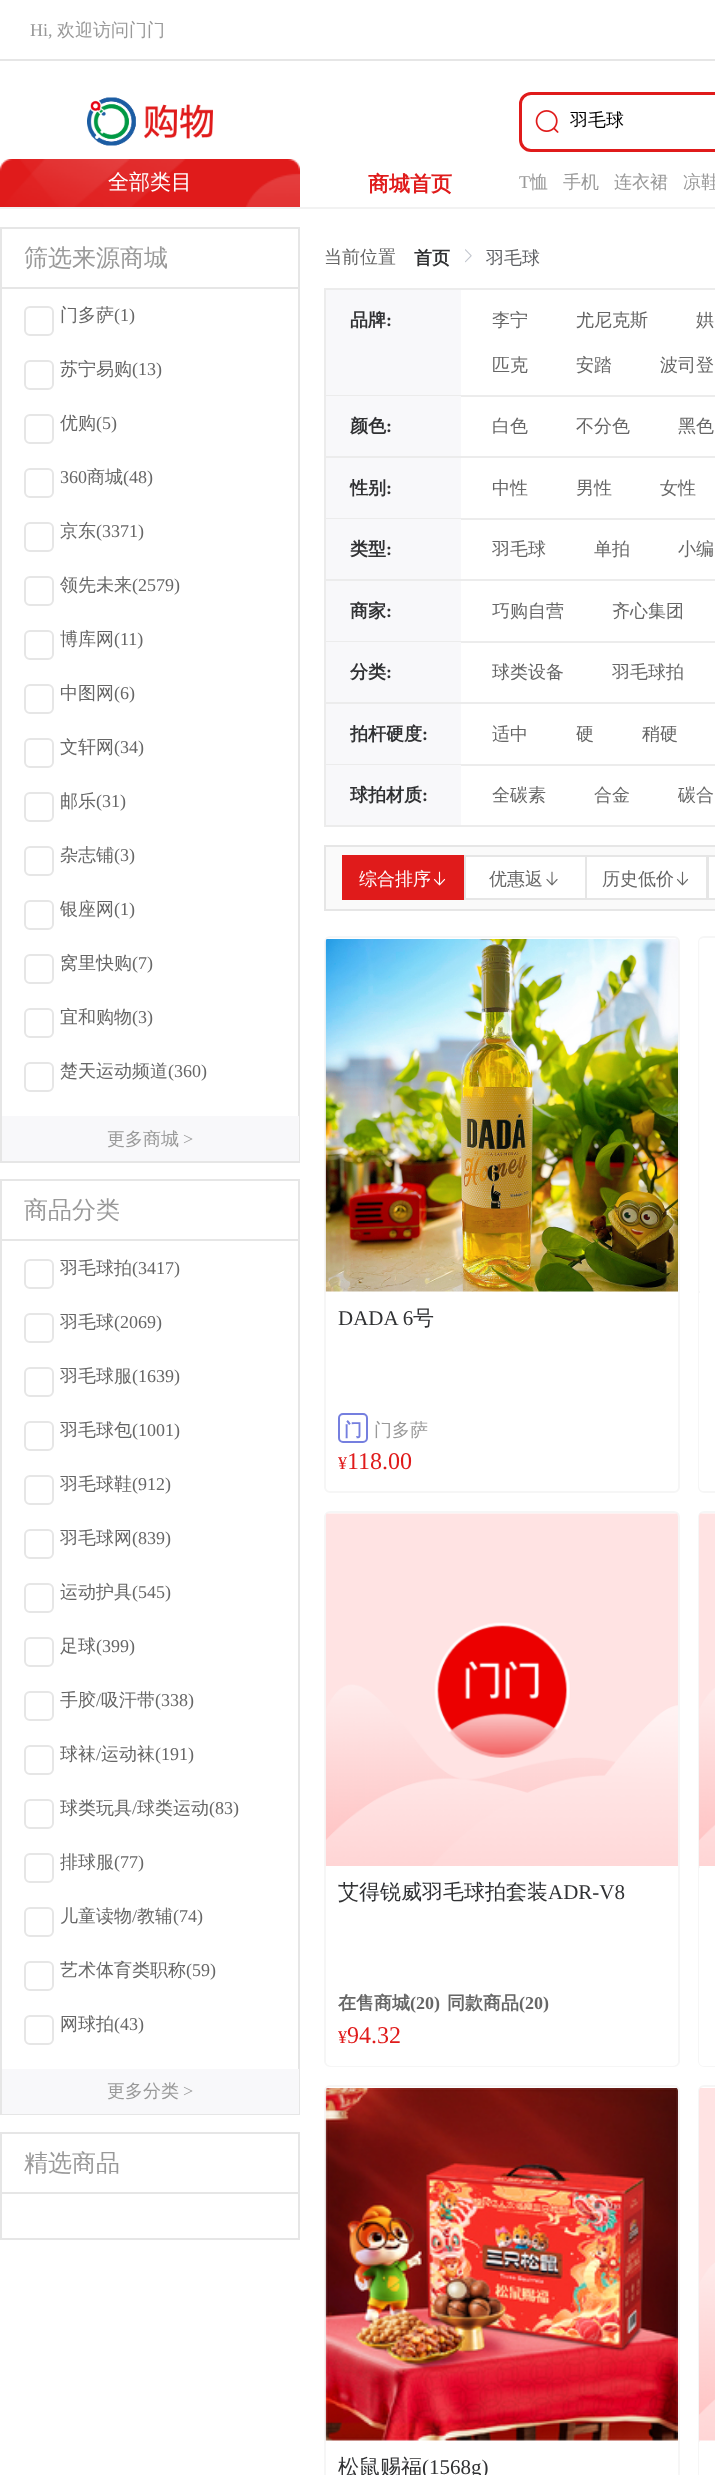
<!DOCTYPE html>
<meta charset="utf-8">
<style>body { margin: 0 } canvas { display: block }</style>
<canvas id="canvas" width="715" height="2475"></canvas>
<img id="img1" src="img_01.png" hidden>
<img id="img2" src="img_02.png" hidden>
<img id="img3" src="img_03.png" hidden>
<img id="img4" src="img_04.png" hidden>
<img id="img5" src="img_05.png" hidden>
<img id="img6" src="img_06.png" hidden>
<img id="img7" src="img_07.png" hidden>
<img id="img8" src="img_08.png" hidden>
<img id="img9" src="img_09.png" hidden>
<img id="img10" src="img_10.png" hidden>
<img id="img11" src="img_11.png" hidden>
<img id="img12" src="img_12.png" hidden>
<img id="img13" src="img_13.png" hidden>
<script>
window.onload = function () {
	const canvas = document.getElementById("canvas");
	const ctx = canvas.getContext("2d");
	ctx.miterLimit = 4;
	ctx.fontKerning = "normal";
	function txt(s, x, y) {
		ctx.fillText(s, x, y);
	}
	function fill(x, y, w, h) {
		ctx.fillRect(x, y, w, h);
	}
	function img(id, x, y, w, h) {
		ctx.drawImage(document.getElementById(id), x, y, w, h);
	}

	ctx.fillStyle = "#FFFFFF";
	fill(0, 0, 715, 2475);
	ctx.fillStyle = "#F2F2F2";
	fill(0, 207, 715, 2);
	ctx.fillStyle = "#E6E6E6";
	fill(0, 59, 715, 2);
	img("img1", 87, 97, 126, 49);
	img("img2", 0, 159, 300, 48);
	ctx.beginPath();
	ctx.roundRect(520.5, 93.5, 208, 57, 10.5);
	ctx.strokeStyle = "#E01B1B";
	ctx.lineWidth = 3;
	ctx.stroke();
	img("img3", 535, 110, 24, 23);
	ctx.strokeStyle = "#E6E6E6";
	ctx.lineWidth = 2;
	ctx.strokeRect(1, 228, 298, 934);
	fill(2, 287, 297, 2);
	ctx.beginPath();
	ctx.roundRect(25, 307, 28, 28, 5);
	ctx.stroke();
	ctx.beginPath();
	ctx.roundRect(25, 361, 28, 28, 5);
	ctx.stroke();
	ctx.beginPath();
	ctx.roundRect(25, 415, 28, 28, 5);
	ctx.stroke();
	ctx.beginPath();
	ctx.roundRect(25, 469, 28, 28, 5);
	ctx.stroke();
	ctx.beginPath();
	ctx.roundRect(25, 523, 28, 28, 5);
	ctx.stroke();
	ctx.beginPath();
	ctx.roundRect(25, 577, 28, 28, 5);
	ctx.stroke();
	ctx.beginPath();
	ctx.roundRect(25, 631, 28, 28, 5);
	ctx.stroke();
	ctx.beginPath();
	ctx.roundRect(25, 685, 28, 28, 5);
	ctx.stroke();
	ctx.beginPath();
	ctx.roundRect(25, 739, 28, 28, 5);
	ctx.stroke();
	ctx.beginPath();
	ctx.roundRect(25, 793, 28, 28, 5);
	ctx.stroke();
	ctx.beginPath();
	ctx.roundRect(25, 847, 28, 28, 5);
	ctx.stroke();
	ctx.beginPath();
	ctx.roundRect(25, 901, 28, 28, 5);
	ctx.stroke();
	ctx.beginPath();
	ctx.roundRect(25, 955, 28, 28, 5);
	ctx.stroke();
	ctx.beginPath();
	ctx.roundRect(25, 1009, 28, 28, 5);
	ctx.stroke();
	ctx.beginPath();
	ctx.roundRect(25, 1063, 28, 28, 5);
	ctx.stroke();
	ctx.fillStyle = "#F8F8FA";
	fill(2, 1116, 297, 45);
	ctx.strokeRect(1, 1180, 298, 934);
	ctx.fillStyle = "#E6E6E6";
	fill(2, 1239, 297, 2);
	ctx.beginPath();
	ctx.roundRect(25, 1260, 28, 28, 5);
	ctx.stroke();
	ctx.beginPath();
	ctx.roundRect(25, 1314, 28, 28, 5);
	ctx.stroke();
	ctx.beginPath();
	ctx.roundRect(25, 1368, 28, 28, 5);
	ctx.stroke();
	ctx.beginPath();
	ctx.roundRect(25, 1422, 28, 28, 5);
	ctx.stroke();
	ctx.beginPath();
	ctx.roundRect(25, 1476, 28, 28, 5);
	ctx.stroke();
	ctx.beginPath();
	ctx.roundRect(25, 1530, 28, 28, 5);
	ctx.stroke();
	ctx.beginPath();
	ctx.roundRect(25, 1584, 28, 28, 5);
	ctx.stroke();
	ctx.beginPath();
	ctx.roundRect(25, 1638, 28, 28, 5);
	ctx.stroke();
	ctx.beginPath();
	ctx.roundRect(25, 1692, 28, 28, 5);
	ctx.stroke();
	ctx.beginPath();
	ctx.roundRect(25, 1746, 28, 28, 5);
	ctx.stroke();
	ctx.beginPath();
	ctx.roundRect(25, 1800, 28, 28, 5);
	ctx.stroke();
	ctx.beginPath();
	ctx.roundRect(25, 1854, 28, 28, 5);
	ctx.stroke();
	ctx.beginPath();
	ctx.roundRect(25, 1908, 28, 28, 5);
	ctx.stroke();
	ctx.beginPath();
	ctx.roundRect(25, 1962, 28, 28, 5);
	ctx.stroke();
	ctx.beginPath();
	ctx.roundRect(25, 2016, 28, 28, 5);
	ctx.stroke();
	ctx.fillStyle = "#F8F8FA";
	fill(2, 2069, 297, 45);
	ctx.strokeRect(1, 2133, 298, 106);
	ctx.fillStyle = "#E6E6E6";
	fill(2, 2192, 297, 2);
	img("img4", 465, 249, 7, 14);
	ctx.strokeStyle = "#ECECEC";
	ctx.strokeRect(325, 289, 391, 537);
	ctx.fillStyle = "#ECECEC";
	fill(326, 395, 389, 2);
	ctx.fillStyle = "#F8F8FA";
	fill(326, 290, 135, 105);
	ctx.fillStyle = "#ECECEC";
	fill(326, 456, 389, 2);
	ctx.fillStyle = "#F8F8FA";
	fill(326, 396, 135, 60);
	ctx.fillStyle = "#ECECEC";
	fill(326, 518, 389, 2);
	ctx.fillStyle = "#F8F8FA";
	fill(326, 458, 135, 60);
	ctx.fillStyle = "#ECECEC";
	fill(326, 579, 389, 2);
	ctx.fillStyle = "#F8F8FA";
	fill(326, 519, 135, 60);
	ctx.fillStyle = "#ECECEC";
	fill(326, 641, 389, 2);
	ctx.fillStyle = "#F8F8FA";
	fill(326, 581, 135, 60);
	ctx.fillStyle = "#ECECEC";
	fill(326, 702, 389, 2);
	ctx.fillStyle = "#F8F8FA";
	fill(326, 642, 135, 60);
	ctx.fillStyle = "#ECECEC";
	fill(326, 764, 389, 2);
	ctx.fillStyle = "#F8F8FA";
	fill(326, 704, 135, 60);
	fill(326, 765, 135, 60);
	ctx.fillStyle = "#FAFAFA";
	ctx.beginPath();
	ctx.rect(325, 846, 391, 64);
	ctx.fill();
	ctx.strokeStyle = "#E6E6E6";
	ctx.stroke();
	ctx.fillStyle = "#E01B1B";
	fill(342, 855, 122, 45);
	img("img5", 433, 871, 13, 15);
	ctx.fillStyle = "#FFFFFF";
	ctx.beginPath();
	ctx.rect(465, 856, 121, 43);
	ctx.fill();
	ctx.stroke();
	img("img6", 546, 871, 12, 15);
	ctx.beginPath();
	ctx.rect(586, 856, 121, 43);
	ctx.fill();
	ctx.stroke();
	img("img7", 676, 871, 13, 15);
	ctx.beginPath();
	ctx.rect(708, 856, 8, 43);
	ctx.fill();
	ctx.stroke();
	ctx.beginPath();
	ctx.roundRect(325, 937, 354, 555, 5);
	ctx.strokeStyle = "#F6F6F6";
	ctx.stroke();
	img("img8", 325, 939, 353, 353);
	ctx.beginPath();
	ctx.roundRect(339, 1414, 28, 28, 4);
	ctx.strokeStyle = "#757FDF";
	ctx.stroke();
	ctx.beginPath();
	ctx.roundRect(699, 937, 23, 555, 5);
	ctx.strokeStyle = "#F6F6F6";
	ctx.stroke();
	img("img9", 699, 939, 2, 352);
	ctx.beginPath();
	ctx.moveTo(699, 1293);
	ctx.lineTo(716, 1293);
	ctx.lineTo(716, 1491);
	ctx.lineTo(704, 1491);
	ctx.bezierCurveTo(701, 1491, 699, 1489, 699, 1486);
	ctx.closePath();
	ctx.fill();
	ctx.beginPath();
	ctx.roundRect(325, 1512, 354, 554, 5);
	ctx.stroke();
	img("img10", 325, 1513, 353, 353);
	ctx.beginPath();
	ctx.roundRect(326, 1868, 352, 198, [0, 0, 5, 5]);
	ctx.fill();
	ctx.beginPath();
	ctx.roundRect(699, 1512, 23, 554, 5);
	ctx.stroke();
	img("img11", 699, 1513, 16, 353);
	ctx.beginPath();
	ctx.moveTo(699, 1868);
	ctx.lineTo(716, 1868);
	ctx.lineTo(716, 2066);
	ctx.lineTo(704, 2066);
	ctx.bezierCurveTo(701, 2066, 699, 2064, 699, 2061);
	ctx.closePath();
	ctx.fill();
	ctx.beginPath();
	ctx.roundRect(325, 2086, 354, 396, 5);
	ctx.stroke();
	img("img12", 325, 2088, 353, 353);
	ctx.beginPath();
	ctx.roundRect(699, 2086, 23, 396, 5);
	ctx.stroke();
	img("img13", 699, 2088, 16, 353);
	fill(699, 2442, 1, 33);
	ctx.font = "18px Liberation Serif";
	ctx.fillStyle = "#999999";
	txt("Hi,", 30, 36);
	ctx.font = "500 18px WenQuanYi Zen Hei";
	txt("欢迎访问门门", 57, 36);
	ctx.font = "500 21px WenQuanYi Zen Hei";
	ctx.fillStyle = "#FFFFFF";
	txt("全部类目", 108, 189);
	ctx.font = "bold 21px WenQuanYi Zen Hei";
	ctx.fillStyle = "#E01B1B";
	txt("商城首页", 368, 191);
	ctx.font = "500 18px WenQuanYi Zen Hei";
	ctx.fillStyle = "#000000";
	txt("羽毛球", 570, 126);
	ctx.font = "18px Liberation Serif";
	ctx.fillStyle = "#999999";
	txt("T", 519, 188);
	ctx.font = "500 18px WenQuanYi Zen Hei";
	txt("恤", 530, 188);
	txt("手机", 563, 188);
	txt("连衣裙", 614, 188);
	txt("凉鞋", 683, 188);
	ctx.font = "500 24px WenQuanYi Zen Hei";
	txt("筛选来源商城", 24, 266);
	ctx.font = "500 18px WenQuanYi Zen Hei";
	ctx.fillStyle = "#666666";
	txt("门多萨", 60, 321);
	ctx.font = "18px Liberation Serif";
	txt("(1)", 114, 321);
	ctx.font = "500 18px WenQuanYi Zen Hei";
	txt("苏宁易购", 60, 375);
	ctx.font = "18px Liberation Serif";
	txt("(13)", 132, 375);
	ctx.font = "500 18px WenQuanYi Zen Hei";
	txt("优购", 60, 429);
	ctx.font = "18px Liberation Serif";
	txt("(5)", 96, 429);
	txt("360", 60, 483);
	ctx.font = "500 18px WenQuanYi Zen Hei";
	txt("商城", 87, 483);
	ctx.font = "18px Liberation Serif";
	txt("(48)", 123, 483);
	ctx.font = "500 18px WenQuanYi Zen Hei";
	txt("京东", 60, 537);
	ctx.font = "18px Liberation Serif";
	txt("(3371)", 96, 537);
	ctx.font = "500 18px WenQuanYi Zen Hei";
	txt("领先未来", 60, 591);
	ctx.font = "18px Liberation Serif";
	txt("(2579)", 132, 591);
	ctx.font = "500 18px WenQuanYi Zen Hei";
	txt("博库网", 60, 645);
	ctx.font = "18px Liberation Serif";
	txt("(11)", 114, 645);
	ctx.font = "500 18px WenQuanYi Zen Hei";
	txt("中图网", 60, 699);
	ctx.font = "18px Liberation Serif";
	txt("(6)", 114, 699);
	ctx.font = "500 18px WenQuanYi Zen Hei";
	txt("文轩网", 60, 753);
	ctx.font = "18px Liberation Serif";
	txt("(34)", 114, 753);
	ctx.font = "500 18px WenQuanYi Zen Hei";
	txt("邮乐", 60, 807);
	ctx.font = "18px Liberation Serif";
	txt("(31)", 96, 807);
	ctx.font = "500 18px WenQuanYi Zen Hei";
	txt("杂志铺", 60, 861);
	ctx.font = "18px Liberation Serif";
	txt("(3)", 114, 861);
	ctx.font = "500 18px WenQuanYi Zen Hei";
	txt("银座网", 60, 915);
	ctx.font = "18px Liberation Serif";
	txt("(1)", 114, 915);
	ctx.font = "500 18px WenQuanYi Zen Hei";
	txt("窝里快购", 60, 969);
	ctx.font = "18px Liberation Serif";
	txt("(7)", 132, 969);
	ctx.font = "500 18px WenQuanYi Zen Hei";
	txt("宜和购物", 60, 1023);
	ctx.font = "18px Liberation Serif";
	txt("(3)", 132, 1023);
	ctx.font = "500 18px WenQuanYi Zen Hei";
	txt("楚天运动频道", 60, 1077);
	ctx.font = "18px Liberation Serif";
	txt("(360)", 168, 1077);
	ctx.font = "500 18px WenQuanYi Zen Hei";
	ctx.fillStyle = "#999999";
	txt("更多商城", 107, 1145);
	ctx.font = "18px Liberation Serif";
	txt(">", 183, 1145);
	ctx.font = "500 24px WenQuanYi Zen Hei";
	txt("商品分类", 24, 1218);
	ctx.font = "500 18px WenQuanYi Zen Hei";
	ctx.fillStyle = "#666666";
	txt("羽毛球拍", 60, 1274);
	ctx.font = "18px Liberation Serif";
	txt("(3417)", 132, 1274);
	ctx.font = "500 18px WenQuanYi Zen Hei";
	txt("羽毛球", 60, 1328);
	ctx.font = "18px Liberation Serif";
	txt("(2069)", 114, 1328);
	ctx.font = "500 18px WenQuanYi Zen Hei";
	txt("羽毛球服", 60, 1382);
	ctx.font = "18px Liberation Serif";
	txt("(1639)", 132, 1382);
	ctx.font = "500 18px WenQuanYi Zen Hei";
	txt("羽毛球包", 60, 1436);
	ctx.font = "18px Liberation Serif";
	txt("(1001)", 132, 1436);
	ctx.font = "500 18px WenQuanYi Zen Hei";
	txt("羽毛球鞋", 60, 1490);
	ctx.font = "18px Liberation Serif";
	txt("(912)", 132, 1490);
	ctx.font = "500 18px WenQuanYi Zen Hei";
	txt("羽毛球网", 60, 1544);
	ctx.font = "18px Liberation Serif";
	txt("(839)", 132, 1544);
	ctx.font = "500 18px WenQuanYi Zen Hei";
	txt("运动护具", 60, 1598);
	ctx.font = "18px Liberation Serif";
	txt("(545)", 132, 1598);
	ctx.font = "500 18px WenQuanYi Zen Hei";
	txt("足球", 60, 1652);
	ctx.font = "18px Liberation Serif";
	txt("(399)", 96, 1652);
	ctx.font = "500 18px WenQuanYi Zen Hei";
	txt("手胶", 60, 1706);
	ctx.font = "18px Liberation Serif";
	txt("/", 96, 1706);
	ctx.font = "500 18px WenQuanYi Zen Hei";
	txt("吸汗带", 101, 1706);
	ctx.font = "18px Liberation Serif";
	txt("(338)", 155, 1706);
	ctx.font = "500 18px WenQuanYi Zen Hei";
	txt("球袜", 60, 1760);
	ctx.font = "18px Liberation Serif";
	txt("/", 96, 1760);
	ctx.font = "500 18px WenQuanYi Zen Hei";
	txt("运动袜", 101, 1760);
	ctx.font = "18px Liberation Serif";
	txt("(191)", 155, 1760);
	ctx.font = "500 18px WenQuanYi Zen Hei";
	txt("球类玩具", 60, 1814);
	ctx.font = "18px Liberation Serif";
	txt("/", 132, 1814);
	ctx.font = "500 18px WenQuanYi Zen Hei";
	txt("球类运动", 137, 1814);
	ctx.font = "18px Liberation Serif";
	txt("(83)", 209, 1814);
	ctx.font = "500 18px WenQuanYi Zen Hei";
	txt("排球服", 60, 1868);
	ctx.font = "18px Liberation Serif";
	txt("(77)", 114, 1868);
	ctx.font = "500 18px WenQuanYi Zen Hei";
	txt("儿童读物", 60, 1922);
	ctx.font = "18px Liberation Serif";
	txt("/", 132, 1922);
	ctx.font = "500 18px WenQuanYi Zen Hei";
	txt("教辅", 137, 1922);
	ctx.font = "18px Liberation Serif";
	txt("(74)", 173, 1922);
	ctx.font = "500 18px WenQuanYi Zen Hei";
	txt("艺术体育类职称", 60, 1976);
	ctx.font = "18px Liberation Serif";
	txt("(59)", 186, 1976);
	ctx.font = "500 18px WenQuanYi Zen Hei";
	txt("网球拍", 60, 2030);
	ctx.font = "18px Liberation Serif";
	txt("(43)", 114, 2030);
	ctx.font = "500 18px WenQuanYi Zen Hei";
	ctx.fillStyle = "#999999";
	txt("更多分类", 107, 2097);
	ctx.font = "18px Liberation Serif";
	txt(">", 183, 2097);
	ctx.font = "500 24px WenQuanYi Zen Hei";
	txt("精选商品", 24, 2171);
	ctx.font = "500 18px WenQuanYi Zen Hei";
	ctx.fillStyle = "#666666";
	txt("当前位置", 324, 263);
	ctx.font = "bold 18px WenQuanYi Zen Hei";
	ctx.fillStyle = "#303133";
	txt("首页", 414, 264);
	ctx.font = "500 18px WenQuanYi Zen Hei";
	ctx.fillStyle = "#606266";
	txt("羽毛球", 486, 264);
	ctx.font = "bold 18px WenQuanYi Zen Hei";
	ctx.fillStyle = "#303133";
	txt("品牌", 350, 326);
	ctx.font = "bold 18px Liberation Serif";
	txt(":", 386, 326);
	ctx.font = "500 18px WenQuanYi Zen Hei";
	ctx.fillStyle = "#666666";
	txt("李宁", 492, 326);
	txt("尤尼克斯", 576, 326);
	txt("娂", 696, 326);
	txt("匹克", 492, 371);
	txt("安踏", 576, 371);
	txt("波司登", 660, 371);
	ctx.font = "bold 18px WenQuanYi Zen Hei";
	ctx.fillStyle = "#303133";
	txt("颜色", 350, 432);
	ctx.font = "bold 18px Liberation Serif";
	txt(":", 386, 432);
	ctx.font = "500 18px WenQuanYi Zen Hei";
	ctx.fillStyle = "#666666";
	txt("白色", 492, 432);
	txt("不分色", 576, 432);
	txt("黑色", 678, 432);
	ctx.font = "bold 18px WenQuanYi Zen Hei";
	ctx.fillStyle = "#303133";
	txt("性别", 350, 494);
	ctx.font = "bold 18px Liberation Serif";
	txt(":", 386, 494);
	ctx.font = "500 18px WenQuanYi Zen Hei";
	ctx.fillStyle = "#666666";
	txt("中性", 492, 494);
	txt("男性", 576, 494);
	txt("女性", 660, 494);
	ctx.font = "bold 18px WenQuanYi Zen Hei";
	ctx.fillStyle = "#303133";
	txt("类型", 350, 555);
	ctx.font = "bold 18px Liberation Serif";
	txt(":", 386, 555);
	ctx.font = "500 18px WenQuanYi Zen Hei";
	ctx.fillStyle = "#666666";
	txt("羽毛球", 492, 555);
	txt("单拍", 594, 555);
	txt("小编", 678, 555);
	ctx.font = "bold 18px WenQuanYi Zen Hei";
	ctx.fillStyle = "#303133";
	txt("商家", 350, 617);
	ctx.font = "bold 18px Liberation Serif";
	txt(":", 386, 617);
	ctx.font = "500 18px WenQuanYi Zen Hei";
	ctx.fillStyle = "#666666";
	txt("巧购自营", 492, 617);
	txt("齐心集团", 612, 617);
	ctx.font = "bold 18px WenQuanYi Zen Hei";
	ctx.fillStyle = "#303133";
	txt("分类", 350, 678);
	ctx.font = "bold 18px Liberation Serif";
	txt(":", 386, 678);
	ctx.font = "500 18px WenQuanYi Zen Hei";
	ctx.fillStyle = "#666666";
	txt("球类设备", 492, 678);
	txt("羽毛球拍", 612, 678);
	ctx.font = "bold 18px WenQuanYi Zen Hei";
	ctx.fillStyle = "#303133";
	txt("拍杆硬度", 350, 740);
	ctx.font = "bold 18px Liberation Serif";
	txt(":", 422, 740);
	ctx.font = "500 18px WenQuanYi Zen Hei";
	ctx.fillStyle = "#666666";
	txt("适中", 492, 740);
	txt("硬", 576, 740);
	txt("稍硬", 642, 740);
	ctx.font = "bold 18px WenQuanYi Zen Hei";
	ctx.fillStyle = "#303133";
	txt("球拍材质", 350, 801);
	ctx.font = "bold 18px Liberation Serif";
	txt(":", 422, 801);
	ctx.font = "500 18px WenQuanYi Zen Hei";
	ctx.fillStyle = "#666666";
	txt("全碳素", 492, 801);
	txt("合金", 594, 801);
	txt("碳合", 678, 801);
	ctx.fillStyle = "#FFFFFF";
	txt("综合排序", 359, 885);
	ctx.fillStyle = "#666666";
	txt("优惠返", 489, 885);
	txt("历史低价", 602, 885);
	ctx.font = "21px Liberation Serif";
	ctx.fillStyle = "#303133";
	txt("DADA 6", 338, 1325);
	ctx.font = "500 21px WenQuanYi Zen Hei";
	txt("号", 413, 1325);
	ctx.font = "bold 18px WenQuanYi Zen Hei";
	ctx.fillStyle = "#757FDF";
	txt("门", 344, 1436);
	ctx.font = "500 18px WenQuanYi Zen Hei";
	ctx.fillStyle = "#999999";
	txt("门多萨", 374, 1436);
	ctx.font = "18px Liberation Serif";
	ctx.fillStyle = "#E01B1B";
	txt("¥", 338, 1469);
	ctx.font = "24px Liberation Serif";
	txt("118.00", 347, 1469);
	ctx.font = "500 21px WenQuanYi Zen Hei";
	ctx.fillStyle = "#303133";
	txt("艾得锐威羽毛球拍套装", 338, 1899);
	ctx.font = "21px Liberation Serif";
	txt("ADR-V8", 548, 1899);
	ctx.font = "bold 18px WenQuanYi Zen Hei";
	ctx.fillStyle = "#666666";
	txt("在售商城", 338, 2009);
	ctx.font = "bold 18px Liberation Serif";
	txt("(20)", 410, 2009);
	ctx.font = "bold 18px WenQuanYi Zen Hei";
	txt("同款商品", 447, 2009);
	ctx.font = "bold 18px Liberation Serif";
	txt("(20)", 519, 2009);
	ctx.font = "18px Liberation Serif";
	ctx.fillStyle = "#E01B1B";
	txt("¥", 338, 2043);
	ctx.font = "24px Liberation Serif";
	txt("94.32", 347, 2043);
	ctx.font = "500 21px WenQuanYi Zen Hei";
	ctx.fillStyle = "#303133";
	txt("松鼠赐福", 338, 2474);
	ctx.font = "21px Liberation Serif";
	txt("(1568g)", 422, 2474);
};
</script>
